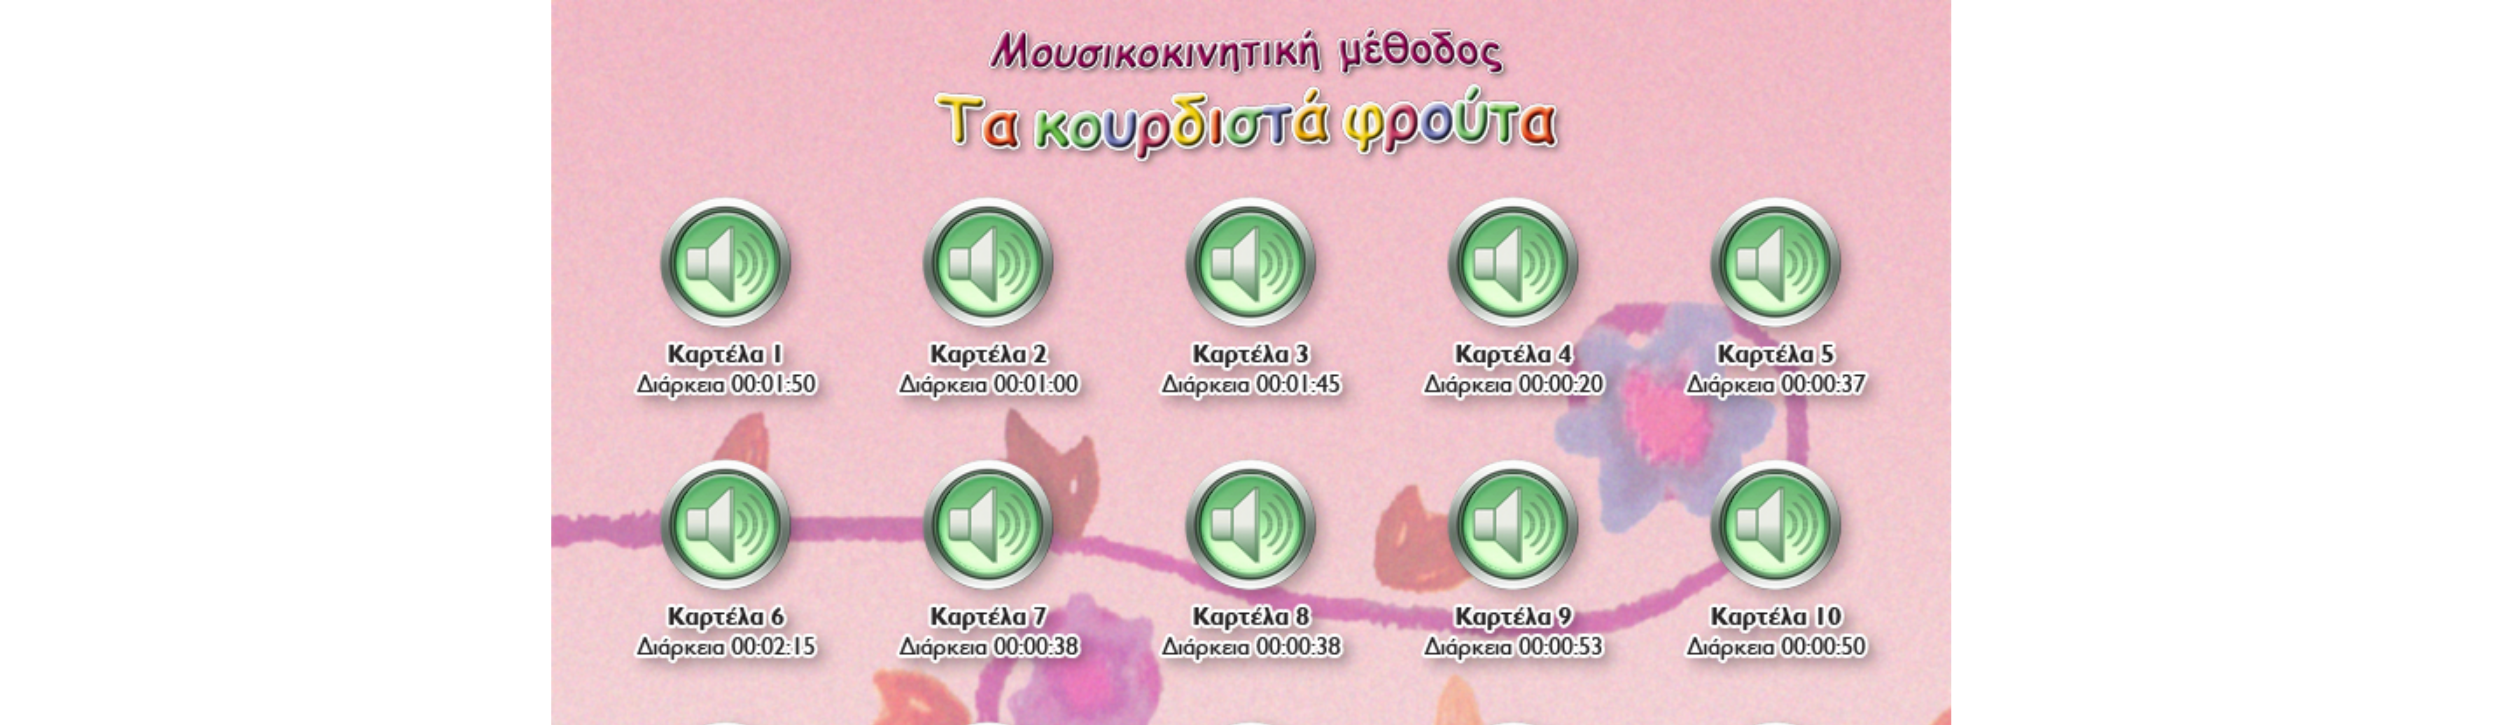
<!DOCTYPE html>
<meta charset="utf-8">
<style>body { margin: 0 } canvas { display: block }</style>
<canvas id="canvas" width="2502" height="725"></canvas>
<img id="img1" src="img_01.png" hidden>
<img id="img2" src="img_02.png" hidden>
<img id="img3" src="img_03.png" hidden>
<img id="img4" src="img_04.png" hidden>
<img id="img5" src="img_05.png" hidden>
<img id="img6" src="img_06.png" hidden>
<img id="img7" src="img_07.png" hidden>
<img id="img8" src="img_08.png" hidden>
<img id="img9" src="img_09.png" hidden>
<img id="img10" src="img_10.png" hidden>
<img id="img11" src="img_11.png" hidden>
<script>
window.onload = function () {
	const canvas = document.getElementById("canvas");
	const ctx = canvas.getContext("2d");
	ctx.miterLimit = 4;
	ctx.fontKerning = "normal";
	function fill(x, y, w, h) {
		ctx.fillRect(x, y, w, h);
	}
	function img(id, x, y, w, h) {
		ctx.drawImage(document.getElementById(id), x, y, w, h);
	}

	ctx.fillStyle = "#FFFFFF";
	fill(0, 0, 2502, 725);
	img("img1", 551, 0, 1401, 725);
	img("img2", 676, 213, 98, 98);
	img("img3", 939, 213, 98, 98);
	img("img4", 1201, 213, 98, 98);
	img("img5", 1464, 213, 98, 98);
	img("img6", 1726, 213, 98, 98);
	img("img7", 676, 473, 98, 98);
	img("img8", 939, 473, 98, 98);
	img("img9", 1201, 473, 98, 98);
	img("img10", 1464, 473, 98, 98);
	img("img11", 1726, 473, 98, 98);
};
</script>
